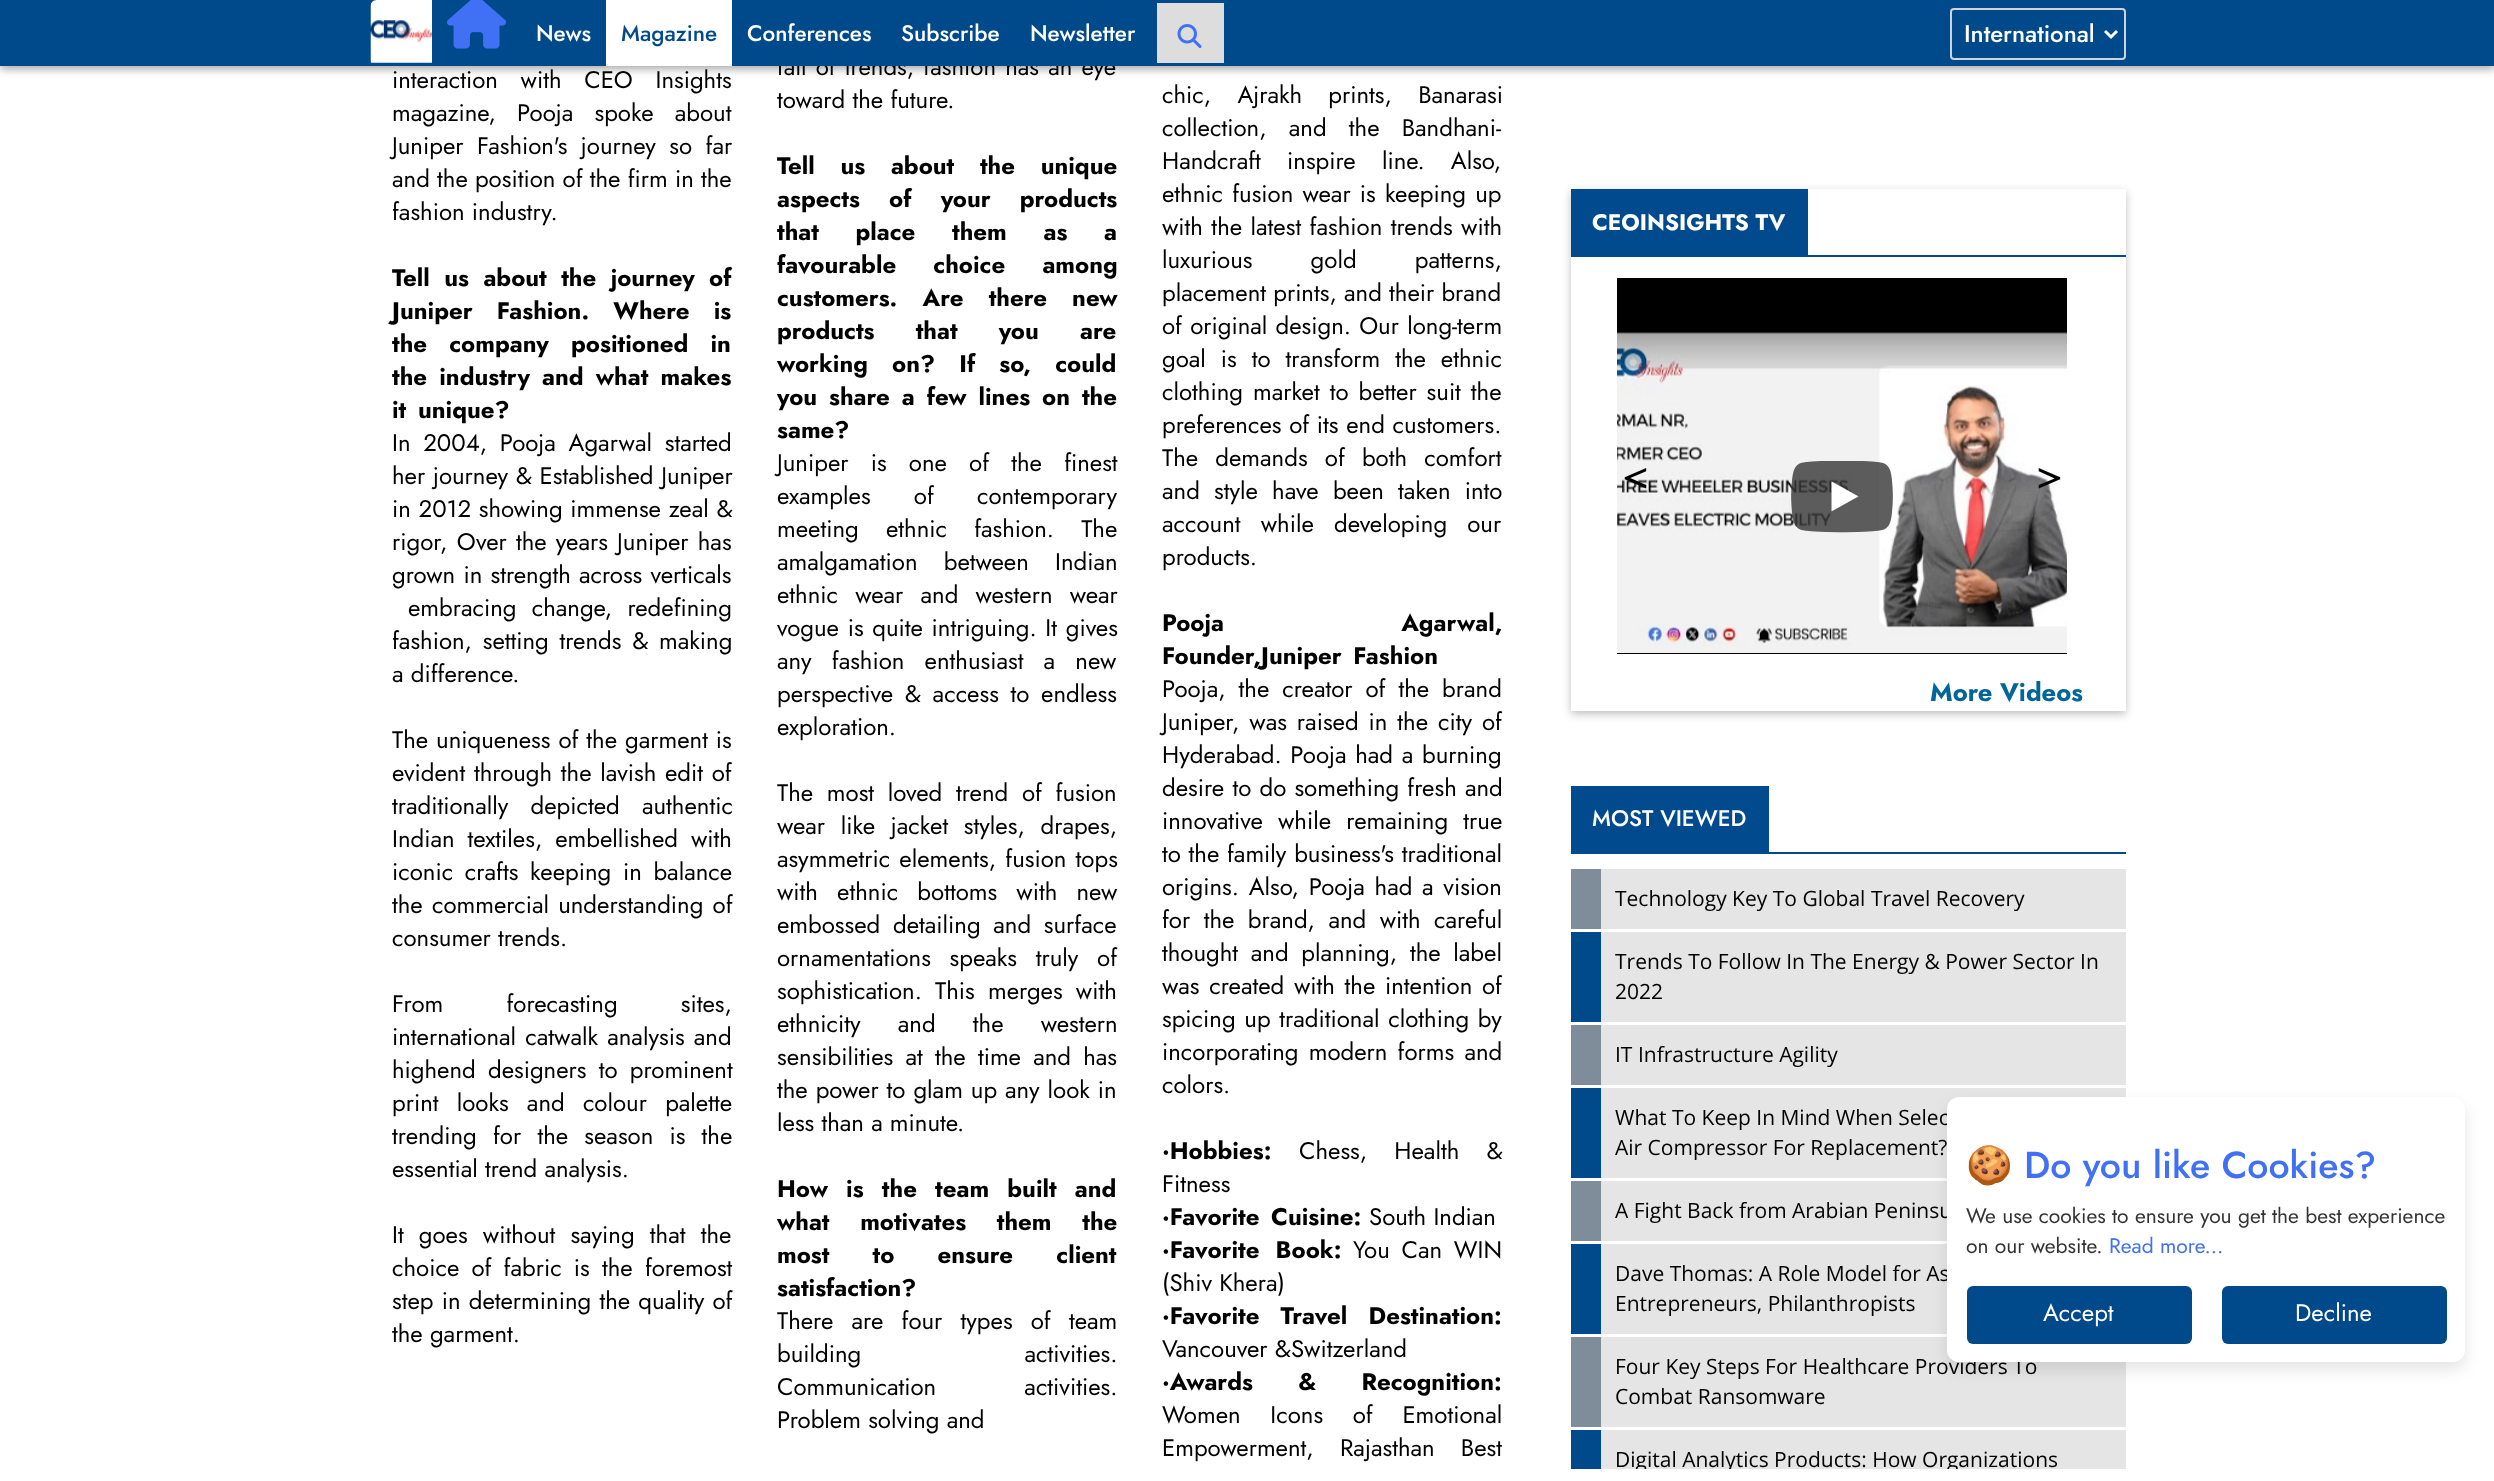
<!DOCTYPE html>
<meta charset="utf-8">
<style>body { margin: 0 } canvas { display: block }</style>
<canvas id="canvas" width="2494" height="1481"></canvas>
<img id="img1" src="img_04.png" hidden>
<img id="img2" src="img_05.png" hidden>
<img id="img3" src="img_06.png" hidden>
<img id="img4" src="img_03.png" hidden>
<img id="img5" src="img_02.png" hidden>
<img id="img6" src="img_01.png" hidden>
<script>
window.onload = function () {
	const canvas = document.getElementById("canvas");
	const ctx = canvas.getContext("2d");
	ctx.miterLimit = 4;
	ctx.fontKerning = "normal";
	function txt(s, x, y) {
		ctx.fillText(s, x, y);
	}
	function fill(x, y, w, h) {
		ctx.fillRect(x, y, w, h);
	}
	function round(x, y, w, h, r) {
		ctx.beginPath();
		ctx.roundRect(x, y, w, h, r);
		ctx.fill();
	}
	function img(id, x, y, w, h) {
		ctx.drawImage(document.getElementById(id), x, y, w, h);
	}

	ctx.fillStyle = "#FFFFFF";
	fill(0, 0, 2494, 1481);
	ctx.fillStyle = "rgba(0, 0, 0, 0.35)";
	ctx.filter = "blur(4px)";
	ctx.beginPath();
	ctx.rect(0, 3, 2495, 66);
	ctx.fill();
	ctx.filter = "none";
	ctx.fillStyle = "#004A8D";
	fill(1808, 255, 318, 2);
	ctx.save();
	ctx.beginPath();
	ctx.moveTo(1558, 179);
	ctx.lineTo(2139, 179);
	ctx.lineTo(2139, 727);
	ctx.lineTo(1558, 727);
	ctx.closePath();
	ctx.moveTo(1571, 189);
	ctx.lineTo(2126, 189);
	ctx.lineTo(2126, 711);
	ctx.lineTo(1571, 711);
	ctx.closePath();
	ctx.clip("evenodd");
	ctx.fillStyle = "rgba(0, 0, 0, 0.25)";
	ctx.filter = "blur(4px)";
	ctx.beginPath();
	ctx.rect(1571, 192, 555, 522);
	ctx.fill();
	ctx.filter = "none";
	ctx.restore();
	fill(1571, 189, 237, 68);
	ctx.fillStyle = "#000000";
	fill(1617, 653, 450, 1);
	img("img1", 1617, 278, 450, 375);
	img("img2", 1617, 332, 450, 37);
	img("img3", 1791, 461, 102, 72);
	ctx.fillStyle = "#004A8D";
	fill(1571, 786, 198, 68);
	fill(1769, 852, 357, 2);
	ctx.fillStyle = "#E5E5E5";
	fill(1601, 869, 525, 60);
	ctx.fillStyle = "#7F8C9A";
	fill(1571, 869, 30, 60);
	ctx.fillStyle = "#E5E5E5";
	fill(1601, 932, 525, 90);
	ctx.fillStyle = "#004A8C";
	fill(1571, 932, 30, 90);
	ctx.fillStyle = "#E5E5E5";
	fill(1601, 1025, 525, 60);
	ctx.fillStyle = "#7F8C9A";
	fill(1571, 1025, 30, 60);
	ctx.fillStyle = "#E5E5E5";
	fill(1601, 1088, 525, 90);
	ctx.fillStyle = "#004A8C";
	fill(1571, 1088, 30, 90);
	ctx.fillStyle = "#E5E5E5";
	fill(1601, 1181, 346, 60);
	ctx.fillStyle = "#7F8C9A";
	fill(1571, 1181, 30, 60);
	ctx.fillStyle = "#E5E5E5";
	fill(1601, 1244, 346, 90);
	ctx.fillStyle = "#004A8C";
	fill(1571, 1244, 30, 90);
	ctx.fillStyle = "#E5E5E5";
	fill(1601, 1337, 525, 90);
	ctx.fillStyle = "#7F8C9A";
	fill(1571, 1337, 30, 90);
	ctx.fillStyle = "#E5E5E5";
	fill(1601, 1430, 525, 39);
	ctx.fillStyle = "#004A8C";
	fill(1571, 1430, 30, 39);
	ctx.fillStyle = "rgba(0, 0, 0, 0.1)";
	ctx.filter = "blur(7.5px)";
	ctx.beginPath();
	ctx.roundRect(1947, 1104, 518, 266, 12);
	ctx.fill();
	ctx.filter = "none";
	ctx.wordSpacing = "15.5px";
	ctx.font = "24px Jost";
	ctx.fillStyle = "#000000";
	txt("interaction with CEO Insights", 392, 88);
	ctx.wordSpacing = "14px";
	txt("magazine, Pooja spoke about", 392, 121);
	ctx.wordSpacing = "6.25px";
	txt("Juniper Fashion's journey so far", 392, 154);
	ctx.wordSpacing = "0px";
	txt("and the position of the firm in the", 392, 187);
	txt("fashion industry.", 392, 220);
	ctx.wordSpacing = "7.25px";
	ctx.font = "bold 24px Jost";
	txt("Tell us about the journey of", 392, 286);
	ctx.wordSpacing = "17px";
	txt("Juniper Fashion. Where is", 392, 319);
	ctx.wordSpacing = "15px";
	txt("the company positioned in", 392, 352);
	ctx.wordSpacing = "5px";
	txt("the industry and what makes", 392, 385);
	ctx.wordSpacing = "4.5px";
	txt("it unique?", 392, 418);
	ctx.wordSpacing = "5.5px";
	ctx.font = "24px Jost";
	txt("In 2004, Pooja Agarwal started", 392, 451);
	ctx.wordSpacing = "0.5px";
	txt("her journey & Established Juniper", 392, 484);
	txt("in 2012 showing immense zeal &", 392, 517);
	ctx.wordSpacing = "2px";
	txt("rigor, Over the years Juniper has", 392, 550);
	ctx.wordSpacing = "1px";
	txt("grown in strength across verticals", 392, 583);
	ctx.wordSpacing = "8px";
	txt("embracing change, redefining", 408, 616);
	ctx.wordSpacing = "3.5px";
	txt("fashion, setting trends & making", 392, 649);
	ctx.wordSpacing = "0px";
	txt("a difference.", 392, 682);
	ctx.wordSpacing = "0.75px";
	txt("The uniqueness of the garment is", 392, 748);
	ctx.wordSpacing = "1.5px";
	txt("evident through the lavish edit of", 392, 781);
	ctx.wordSpacing = "15px";
	txt("traditionally depicted authentic", 392, 814);
	ctx.wordSpacing = "5.75px";
	txt("Indian textiles, embellished with", 392, 847);
	ctx.wordSpacing = "4.5px";
	txt("iconic crafts keeping in balance", 392, 880);
	ctx.wordSpacing = "2px";
	txt("the commercial understanding of", 392, 913);
	ctx.wordSpacing = "0px";
	txt("consumer trends.", 392, 946);
	ctx.wordSpacing = "56px";
	txt("From forecasting sites,", 392, 1012);
	ctx.wordSpacing = "2px";
	txt("international catwalk analysis and", 392, 1045);
	ctx.wordSpacing = "5px";
	txt("highend designers to prominent", 392, 1078);
	ctx.wordSpacing = "11px";
	txt("print looks and colour palette", 392, 1111);
	ctx.wordSpacing = "9px";
	txt("trending for the season is the", 392, 1144);
	ctx.wordSpacing = "0px";
	txt("essential trend analysis.", 392, 1177);
	ctx.wordSpacing = "8px";
	txt("It goes without saying that the", 392, 1243);
	ctx.wordSpacing = "5px";
	txt("choice of fabric is the foremost", 392, 1276);
	ctx.wordSpacing = "1px";
	txt("step in determining the quality of", 392, 1309);
	ctx.wordSpacing = "0px";
	txt("the garment.", 392, 1342);
	ctx.wordSpacing = "2px";
	txt("fall of trends, fashion has an eye", 777, 75);
	ctx.fillStyle = "#004A8C";
	fill(0, 0, 2494, 66);
	ctx.fillStyle = "#DDDDDD";
	fill(1157, 3, 67, 60);
	img("img4", 1177, 24, 25, 24);
	ctx.fillStyle = "#024582";
	ctx.beginPath();
	ctx.moveTo(1954, 10);
	ctx.lineTo(2122, 10);
	ctx.bezierCurveTo(2123, 10, 2124, 12, 2124, 13);
	ctx.bezierCurveTo(2124, 11, 2124, 9, 2122, 9);
	ctx.lineTo(1954, 9);
	ctx.bezierCurveTo(1952, 9, 1952, 11, 1952, 13);
	ctx.bezierCurveTo(1952, 12, 1953, 10, 1954, 10);
	ctx.closePath();
	ctx.fill();
	ctx.beginPath();
	ctx.roundRect(1951, 9, 174, 50, 3);
	ctx.strokeStyle = "#CED4DA";
	ctx.lineWidth = 2;
	ctx.stroke();
	ctx.wordSpacing = "0px";
	ctx.font = "500 24px Jost";
	ctx.fillStyle = "#FFFFFF";
	txt("International", 1964, 42);
	ctx.beginPath();
	ctx.moveTo(2105, 31);
	ctx.lineTo(2111, 37);
	ctx.lineTo(2117, 31);
	ctx.strokeStyle = "#FFFFFF";
	ctx.lineWidth = 3;
	ctx.stroke();
	ctx.font = "500 22.5px Jost";
	txt("Newsletter", 1030, 41);
	txt("Subscribe", 901, 41);
	txt("Conferences", 747, 41);
	fill(606, 0, 126, 66);
	ctx.fillStyle = "#004A8C";
	txt("Magazine", 621, 41);
	ctx.fillStyle = "#FFFFFF";
	txt("News", 536, 41);
	img("img5", 447, 0, 59, 49);
	img("img6", 370, 0, 62, 63);
	ctx.font = "24px Jost";
	ctx.fillStyle = "#000000";
	txt("toward the future.", 777, 108);
	ctx.wordSpacing = "18.5px";
	ctx.font = "bold 24px Jost";
	txt("Tell us about the unique", 777, 174);
	ctx.wordSpacing = "22px";
	txt("aspects of your products", 777, 207);
	ctx.wordSpacing = "29.5px";
	txt("that place them as a", 777, 240);
	ctx.wordSpacing = "30px";
	txt("favourable choice among", 777, 273);
	ctx.wordSpacing = "18px";
	txt("customers. Are there new", 777, 306);
	ctx.wordSpacing = "34px";
	txt("products that you are", 777, 339);
	ctx.wordSpacing = "17px";
	txt("working on? If so, could", 777, 372);
	ctx.wordSpacing = "4.75px";
	txt("you share a few lines on the", 777, 405);
	ctx.wordSpacing = "0px";
	txt("same?", 777, 438);
	ctx.wordSpacing = "15px";
	ctx.font = "24px Jost";
	txt("Juniper is one of the finest", 777, 471);
	ctx.wordSpacing = "36px";
	txt("examples of contemporary", 777, 504);
	ctx.wordSpacing = "20px";
	txt("meeting ethnic fashion. The", 777, 537);
	ctx.wordSpacing = "19px";
	txt("amalgamation between Indian", 777, 570);
	ctx.wordSpacing = "10px";
	txt("ethnic wear and western wear", 777, 603);
	ctx.wordSpacing = "1.5px";
	txt("vogue is quite intriguing. It gives", 777, 636);
	ctx.wordSpacing = "13px";
	txt("any fashion enthusiast a new", 777, 669);
	ctx.wordSpacing = "4.5px";
	txt("perspective & access to endless", 777, 702);
	ctx.wordSpacing = "0px";
	txt("exploration.", 777, 735);
	ctx.wordSpacing = "6.5px";
	txt("The most loved trend of fusion", 777, 801);
	ctx.wordSpacing = "8.5px";
	txt("wear like jacket styles, drapes,", 777, 834);
	ctx.wordSpacing = "2px";
	txt("asymmetric elements, fusion tops", 777, 867);
	ctx.wordSpacing = "12px";
	txt("with ethnic bottoms with new", 777, 900);
	ctx.wordSpacing = "5.5px";
	txt("embossed detailing and surface", 777, 933);
	ctx.wordSpacing = "11.5px";
	txt("ornamentations speaks truly of", 777, 966);
	ctx.wordSpacing = "6px";
	txt("sophistication. This merges with", 777, 999);
	ctx.wordSpacing = "30px";
	txt("ethnicity and the western", 777, 1032);
	ctx.wordSpacing = "5px";
	txt("sensibilities at the time and has", 777, 1065);
	ctx.wordSpacing = "0.75px";
	txt("the power to glam up any look in", 777, 1098);
	ctx.wordSpacing = "0px";
	txt("less than a minute.", 777, 1131);
	ctx.wordSpacing = "11px";
	ctx.font = "bold 24px Jost";
	txt("How is the team built and", 777, 1197);
	ctx.wordSpacing = "23.5px";
	txt("what motivates them the", 777, 1230);
	ctx.wordSpacing = "36px";
	txt("most to ensure client", 777, 1263);
	ctx.wordSpacing = "0px";
	txt("satisfaction?", 777, 1296);
	ctx.wordSpacing = "11px";
	ctx.font = "24px Jost";
	txt("There are four types of team", 777, 1329);
	ctx.wordSpacing = "156px";
	txt("building activities.", 777, 1362);
	ctx.wordSpacing = "81px";
	txt("Communication activities.", 777, 1395);
	ctx.wordSpacing = "0px";
	txt("Problem solving and", 777, 1428);
	ctx.wordSpacing = "19px";
	txt("chic, Ajrakh prints, Banarasi", 1162, 103);
	ctx.wordSpacing = "15px";
	txt("collection, and the Bandhani-", 1162, 136);
	ctx.wordSpacing = "19px";
	txt("Handcraft inspire line. Also,", 1162, 169);
	ctx.wordSpacing = "2px";
	txt("ethnic fusion wear is keeping up", 1162, 202);
	ctx.wordSpacing = "1.25px";
	txt("with the latest fashion trends with", 1162, 235);
	ctx.wordSpacing = "51px";
	txt("luxurious gold patterns,", 1162, 268);
	ctx.wordSpacing = "0px";
	txt("placement prints, and their brand", 1162, 301);
	ctx.wordSpacing = "1px";
	txt("of original design. Our long-term", 1162, 334);
	ctx.wordSpacing = "7.75px";
	txt("goal is to transform the ethnic", 1162, 367);
	ctx.wordSpacing = "2.75px";
	txt("clothing market to better suit the", 1162, 400);
	ctx.wordSpacing = "0.5px";
	txt("preferences of its end customers.", 1162, 433);
	ctx.wordSpacing = "10px";
	txt("The demands of both comfort", 1162, 466);
	ctx.wordSpacing = "7px";
	txt("and style have been taken into", 1162, 499);
	ctx.wordSpacing = "13px";
	txt("account while developing our", 1162, 532);
	ctx.wordSpacing = "0px";
	txt("products.", 1162, 565);
	ctx.wordSpacing = "170px";
	ctx.font = "bold 24px Jost";
	txt("Pooja Agarwal,", 1162, 631);
	ctx.wordSpacing = "4.5px";
	txt("Founder,Juniper Fashion", 1162, 664);
	ctx.wordSpacing = "5.75px";
	ctx.font = "24px Jost";
	txt("Pooja, the creator of the brand", 1162, 697);
	ctx.wordSpacing = "2.75px";
	txt("Juniper, was raised in the city of", 1162, 730);
	ctx.wordSpacing = "1.5px";
	txt("Hyderabad. Pooja had a burning", 1162, 763);
	ctx.wordSpacing = "1px";
	txt("desire to do something fresh and", 1162, 796);
	ctx.wordSpacing = "8px";
	txt("innovative while remaining true", 1162, 829);
	ctx.wordSpacing = "0.5px";
	txt("to the family business's traditional", 1162, 862);
	ctx.wordSpacing = "2.5px";
	txt("origins. Also, Pooja had a vision", 1162, 895);
	ctx.wordSpacing = "6.25px";
	txt("for the brand, and with careful", 1162, 928);
	ctx.wordSpacing = "5.5px";
	txt("thought and planning, the label", 1162, 961);
	ctx.wordSpacing = "2.5px";
	txt("was created with the intention of", 1162, 994);
	ctx.wordSpacing = "1.5px";
	txt("spicing up traditional clothing by", 1162, 1027);
	ctx.wordSpacing = "3px";
	txt("incorporating modern forms and", 1162, 1060);
	ctx.wordSpacing = "0px";
	txt("colors.", 1162, 1093);
	ctx.font = "bold 24px Jost";
	txt("·Hobbies:", 1162, 1159);
	ctx.wordSpacing = "20px";
	ctx.font = "24px Jost";
	txt("Chess, Health &", 1299, 1159);
	ctx.wordSpacing = "0px";
	txt("Fitness", 1162, 1192);
	ctx.wordSpacing = "4.5px";
	ctx.font = "bold 24px Jost";
	txt("·Favorite Cuisine:", 1162, 1225);
	ctx.wordSpacing = "0px";
	ctx.font = "24px Jost";
	txt("South Indian", 1369, 1225);
	ctx.wordSpacing = "9px";
	ctx.font = "bold 24px Jost";
	txt("·Favorite Book:", 1162, 1258);
	ctx.wordSpacing = "4.5px";
	ctx.font = "24px Jost";
	txt("You Can WIN", 1353, 1258);
	ctx.wordSpacing = "0px";
	txt("(Shiv Khera)", 1162, 1291);
	ctx.wordSpacing = "14px";
	ctx.font = "bold 24px Jost";
	txt("·Favorite Travel Destination:", 1162, 1324);
	ctx.wordSpacing = "0px";
	ctx.font = "24px Jost";
	txt("Vancouver &Switzerland", 1162, 1357);
	ctx.wordSpacing = "38px";
	ctx.font = "bold 24px Jost";
	txt("·Awards & Recognition:", 1162, 1390);
	ctx.wordSpacing = "22.5px";
	ctx.font = "24px Jost";
	txt("Women Icons of Emotional", 1162, 1423);
	ctx.wordSpacing = "19px";
	txt("Empowerment, Rajasthan Best", 1162, 1456);
	ctx.wordSpacing = "0px";
	ctx.font = "bold 22.5px Jost";
	ctx.fillStyle = "#FFFFFF";
	txt("CEOINSIGHTS TV", 1592, 230);
	ctx.font = "42px Jost";
	ctx.fillStyle = "#000000";
	txt("<", 1622, 489);
	txt(">", 2036, 489);
	ctx.font = "bold 25.5px Jost";
	ctx.fillStyle = "#006699";
	txt("More Videos", 1930, 701);
	ctx.font = "500 22.5px Jost";
	ctx.fillStyle = "#FFFFFF";
	txt("MOST VIEWED", 1592, 826);
	ctx.font = "21px Open Sans";
	ctx.fillStyle = "#000000";
	txt("Technology Key To Global Travel Recovery", 1615, 906);
	txt("Trends To Follow In The Energy & Power Sector In", 1615, 969);
	txt("2022", 1615, 999);
	txt("IT Infrastructure Agility", 1615, 1062);
	txt("What To Keep In Mind When Selec", 1615, 1125);
	txt("Air Compressor For Replacement?", 1615, 1155);
	txt("A Fight Back from Arabian Peninsu", 1615, 1218);
	txt("Dave Thomas: A Role Model for As", 1615, 1281);
	txt("Entrepreneurs, Philanthropists", 1615, 1311);
	txt("Four Key Steps For Healthcare Providers To", 1615, 1374);
	txt("Combat Ransomware", 1615, 1404);
	ctx.save();
	ctx.beginPath();
	ctx.rect(1571, 869, 555, 600);
	ctx.clip();
	txt("Digital Analytics Products: How Organizations", 1615, 1467);
	ctx.restore();
	ctx.fillStyle = "#FFFFFF";
	round(1947, 1097, 518, 265, 12);
	ctx.font = "37.5px Noto Color Emoji";
	ctx.fillStyle = "#4070F4";
	txt("🍪", 1966, 1178);
	ctx.font = "500 37.5px Jost";
	txt("Do you like Cookies?", 2024, 1178);
	ctx.font = "21px Jost";
	ctx.fillStyle = "#333333";
	txt("We use cookies to ensure you get the best experience", 1966, 1223);
	txt("on our website.", 1966, 1253);
	ctx.fillStyle = "#4070F4";
	txt("Read more...", 2109, 1253);
	ctx.fillStyle = "#004A8C";
	round(1967, 1286, 225, 58, 6);
	ctx.font = "24px Jost";
	ctx.fillStyle = "#FFFFFF";
	txt("Accept", 2043, 1321);
	ctx.fillStyle = "#004A8C";
	round(2222, 1286, 225, 58, 6);
	ctx.fillStyle = "#FFFFFF";
	txt("Decline", 2295, 1321);
};
</script>
